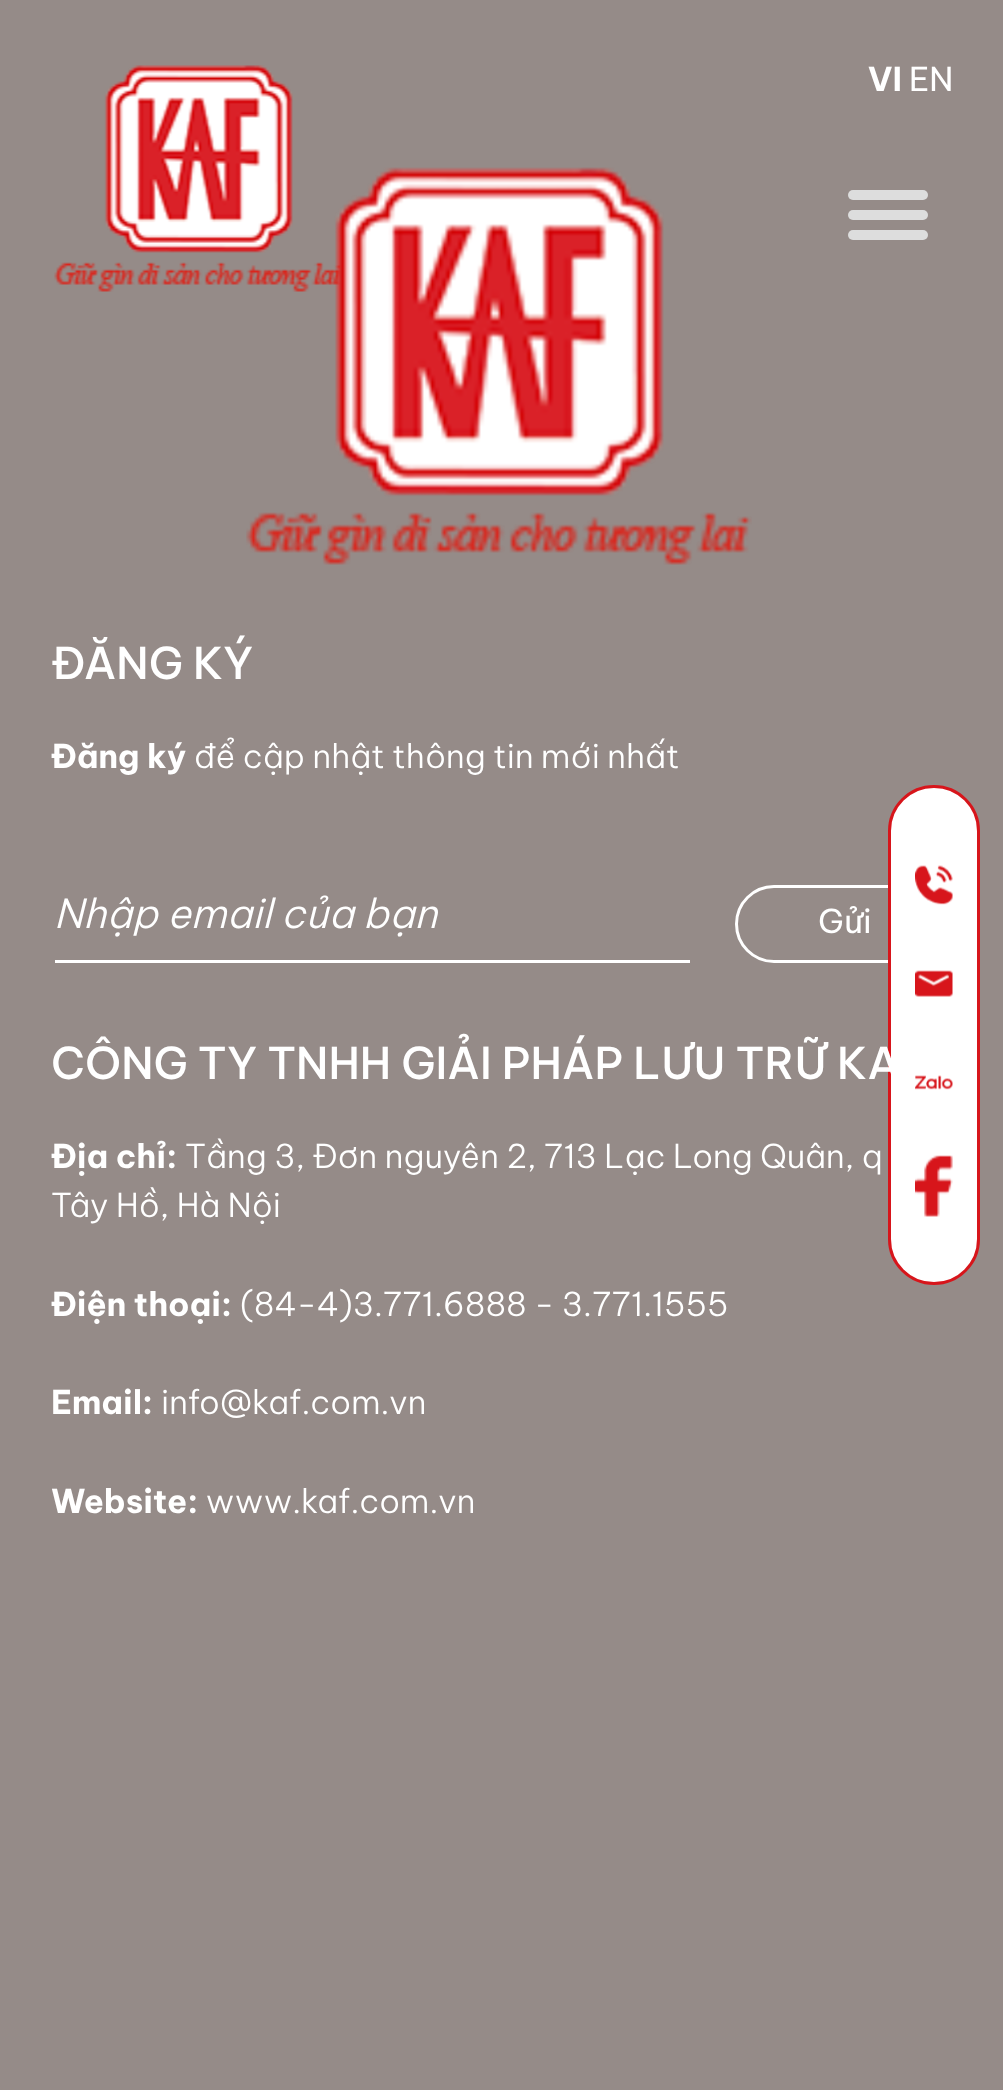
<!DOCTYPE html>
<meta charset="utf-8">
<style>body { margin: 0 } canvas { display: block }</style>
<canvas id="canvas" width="1003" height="2090"></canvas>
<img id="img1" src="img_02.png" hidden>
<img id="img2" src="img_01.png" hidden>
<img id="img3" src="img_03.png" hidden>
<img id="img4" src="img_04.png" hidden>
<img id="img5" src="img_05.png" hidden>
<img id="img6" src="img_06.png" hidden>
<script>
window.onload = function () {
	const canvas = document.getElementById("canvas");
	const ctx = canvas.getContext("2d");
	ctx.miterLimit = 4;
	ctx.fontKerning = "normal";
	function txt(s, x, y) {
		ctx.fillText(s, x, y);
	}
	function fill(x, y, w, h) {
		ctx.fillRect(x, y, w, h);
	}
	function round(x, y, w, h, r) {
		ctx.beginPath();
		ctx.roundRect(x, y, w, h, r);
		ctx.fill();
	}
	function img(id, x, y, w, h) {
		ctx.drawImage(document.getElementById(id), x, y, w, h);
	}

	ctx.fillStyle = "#958B88";
	fill(0, 0, 1003, 2090);
	img("img1", 246, 167, 506, 398);
	img("img2", 54, 65, 287, 227);
	ctx.fillStyle = "#DDDDDD";
	round(848, 190, 80, 10, 5);
	round(848, 210, 80, 10, 5);
	round(848, 230, 80, 10, 5);
	ctx.fillStyle = "#FFFFFF";
	fill(55, 960, 635, 3);
	ctx.beginPath();
	ctx.roundRect(736.5, 886.5, 215, 75, 37.5);
	ctx.strokeStyle = "#FFFFFF";
	ctx.lineWidth = 3;
	ctx.stroke();
	ctx.beginPath();
	ctx.roundRect(889.5, 786.5, 89, 497, 44.5);
	ctx.fill();
	ctx.strokeStyle = "#D7151B";
	ctx.stroke();
	img("img3", 915, 865, 38, 40);
	img("img4", 915, 970, 38, 27);
	img("img5", 915, 1075, 38, 15);
	img("img6", 915, 1155, 38, 62);
	ctx.font = "bold 32.8px Be Vietnam Pro";
	txt("VI", 868, 91);
	ctx.font = "32.8px Be Vietnam Pro";
	txt("EN", 909, 91);
	ctx.font = "500 43.75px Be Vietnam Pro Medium";
	txt("ĐĂNG KÝ", 51, 679);
	ctx.font = "bold 32.8px Be Vietnam Pro";
	txt("Đăng ký", 51, 768);
	ctx.font = "300 32.8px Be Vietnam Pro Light";
	txt("để cập nhật thông tin mới nhất", 194, 768);
	ctx.font = "italic 300 40px Be Vietnam Pro Light";
	txt("Nhập email của bạn", 54, 928);
	ctx.font = "32.8px Be Vietnam Pro";
	txt("Gửi", 818, 933);
	ctx.font = "500 43.75px Be Vietnam Pro Medium";
	txt("CÔNG TY TNHH GIẢI PHÁP LƯU TRỮ KA", 51, 1079);
	ctx.font = "bold 32.8px Be Vietnam Pro";
	txt("Địa chỉ:", 51, 1168);
	ctx.font = "300 32.8px Be Vietnam Pro Light";
	txt("Tầng 3, Đơn nguyên 2, 713 Lạc Long Quân, q", 185, 1168);
	txt("Tây Hồ, Hà Nội", 51, 1217);
	ctx.font = "bold 32.8px Be Vietnam Pro";
	txt("Điện thoại:", 51, 1316);
	ctx.font = "300 32.8px Be Vietnam Pro Light";
	txt("(84-4)3.771.6888 - 3.771.1555", 240, 1316);
	ctx.font = "bold 32.8px Be Vietnam Pro";
	txt("Email:", 51, 1414);
	ctx.font = "300 32.8px Be Vietnam Pro Light";
	txt("info@kaf.com.vn", 161, 1414);
	ctx.font = "bold 32.8px Be Vietnam Pro";
	txt("Website:", 51, 1513);
	ctx.font = "300 32.8px Be Vietnam Pro Light";
	txt("www.kaf.com.vn", 206, 1513);
};
</script>
